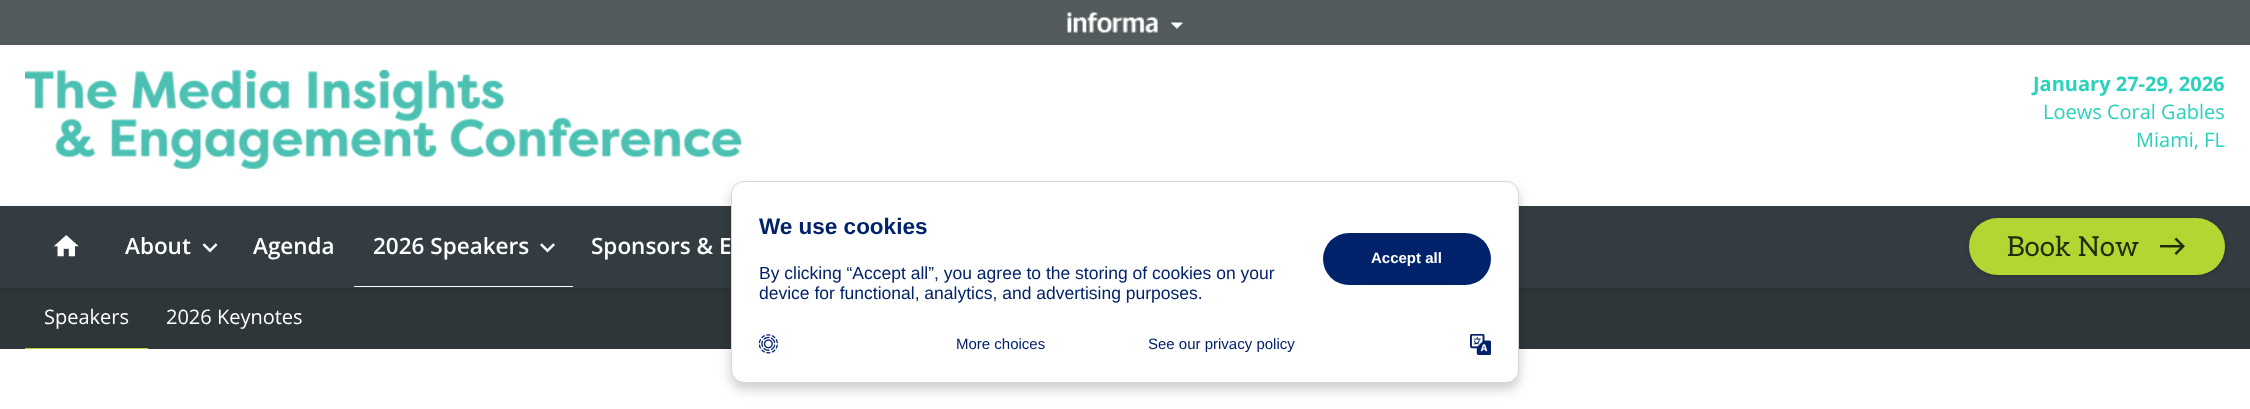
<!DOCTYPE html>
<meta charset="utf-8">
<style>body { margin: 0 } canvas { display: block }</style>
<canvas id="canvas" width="2250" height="409"></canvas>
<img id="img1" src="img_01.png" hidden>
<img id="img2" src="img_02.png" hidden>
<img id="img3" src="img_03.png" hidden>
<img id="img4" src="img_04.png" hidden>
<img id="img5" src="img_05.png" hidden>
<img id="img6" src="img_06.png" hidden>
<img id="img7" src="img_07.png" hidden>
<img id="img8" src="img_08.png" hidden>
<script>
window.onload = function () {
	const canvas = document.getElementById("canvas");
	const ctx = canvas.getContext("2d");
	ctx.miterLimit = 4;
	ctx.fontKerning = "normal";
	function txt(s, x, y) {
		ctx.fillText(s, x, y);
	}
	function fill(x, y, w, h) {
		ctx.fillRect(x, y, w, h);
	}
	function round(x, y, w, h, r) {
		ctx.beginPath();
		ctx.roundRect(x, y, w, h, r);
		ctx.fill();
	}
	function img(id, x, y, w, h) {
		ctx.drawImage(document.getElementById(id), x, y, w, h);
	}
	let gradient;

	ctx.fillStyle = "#FFFFFF";
	fill(0, 0, 2250, 409);
	ctx.fillStyle = "#525A5C";
	fill(0, 0, 2250, 45);
	img("img1", 1067, 12, 116, 21);
	img("img2", 25, 70, 717, 99);
	ctx.fillStyle = "#333C40";
	fill(0, 206, 2250, 82);
	ctx.fillStyle = "#2E363A";
	fill(0, 295, 2250, 54);
	ctx.save();
	ctx.beginPath();
	ctx.moveTo(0, 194);
	ctx.lineTo(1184, 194);
	ctx.lineTo(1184, 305);
	ctx.lineTo(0, 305);
	ctx.closePath();
	ctx.moveTo(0, 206);
	ctx.lineTo(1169, 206);
	ctx.lineTo(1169, 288);
	ctx.lineTo(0, 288);
	ctx.closePath();
	ctx.clip("evenodd");
	ctx.fillStyle = "rgba(0, 0, 0, 0.09)";
	ctx.filter = "blur(4.5px)";
	ctx.beginPath();
	ctx.rect(0, 209, 1169, 81);
	ctx.fill();
	ctx.filter = "none";
	ctx.restore();
	img("img3", 53, 235, 26, 22);
	img("img4", 202, 243, 16, 10);
	ctx.fillStyle = "#FFFFFF";
	fill(354, 286, 219, 1);
	img("img5", 540, 243, 15, 10);
	ctx.fillStyle = "rgba(0, 0, 0, 0.2)";
	ctx.filter = "blur(2px)";
	ctx.beginPath();
	ctx.roundRect(1969, 219, 256, 57, 28.5);
	ctx.fill();
	ctx.filter = "none";
	ctx.fillStyle = "#B2D732";
	round(1969, 218, 256, 57, 28.5);
	img("img6", 2160, 237, 25, 18);
	gradient = ctx.createLinearGradient(1125, 287, 1125, 295);
	gradient.addColorStop(0, "#293134");
	gradient.addColorStop(1, "#2E363A");
	ctx.fillStyle = gradient;
	fill(0, 288, 2250, 7);
	ctx.fillStyle = "#B2D732";
	fill(25, 348, 123, 1);
	ctx.fillStyle = "rgba(0, 0, 0, 0.2)";
	ctx.filter = "blur(6px)";
	ctx.beginPath();
	ctx.roundRect(731, 188, 788, 201, 13);
	ctx.fill();
	ctx.filter = "none";
	ctx.fillStyle = "#FFFFFF";
	ctx.beginPath();
	ctx.roundRect(731.5, 181.5, 787, 201, 12.5);
	ctx.fill();
	ctx.strokeStyle = "#D8D8D8";
	ctx.stroke();
	ctx.fillStyle = "#00226A";
	round(1323, 233, 168, 52, 26);
	img("img7", 759, 334, 19, 20);
	img("img8", 1470, 334, 21, 21);
	ctx.font = "bold 20px Open Sans";
	ctx.fillStyle = "#2AD1BB";
	txt("January 27-29, 2026", 2033, 91);
	ctx.font = "20px Open Sans";
	txt("Loews Coral Gables", 2043, 119);
	txt("Miami, FL", 2136, 147);
	ctx.font = "600 22.5px Open Sans";
	ctx.fillStyle = "#FFFFFF";
	txt("About", 125, 254);
	txt("Agenda", 253, 254);
	txt("2026 Speakers", 373, 254);
	txt("Sponsors & E", 591, 254);
	ctx.font = "27.5px Aleo";
	ctx.fillStyle = "#242B0A";
	txt("Book Now", 2007, 256);
	ctx.font = "20px Open Sans";
	ctx.fillStyle = "#FFFFFF";
	txt("Speakers", 44, 324);
	txt("2026 Keynotes", 166, 324);
	ctx.font = "bold 22.5px Liberation Sans";
	ctx.fillStyle = "#00226A";
	txt("We use cookies", 759, 234);
	ctx.font = "17.5px Liberation Sans";
	txt("By clicking “Accept all”, you agree to the storing of cookies on your", 759, 279);
	txt("device for functional, analytics, and advertising purposes.", 759, 299);
	ctx.font = "bold 15px Liberation Sans";
	ctx.fillStyle = "#FFFFFF";
	txt("Accept all", 1371, 263);
	ctx.font = "15px Liberation Sans";
	ctx.fillStyle = "#00226A";
	txt("More choices", 956, 349);
	txt("See our privacy policy", 1148, 349);
};
</script>
